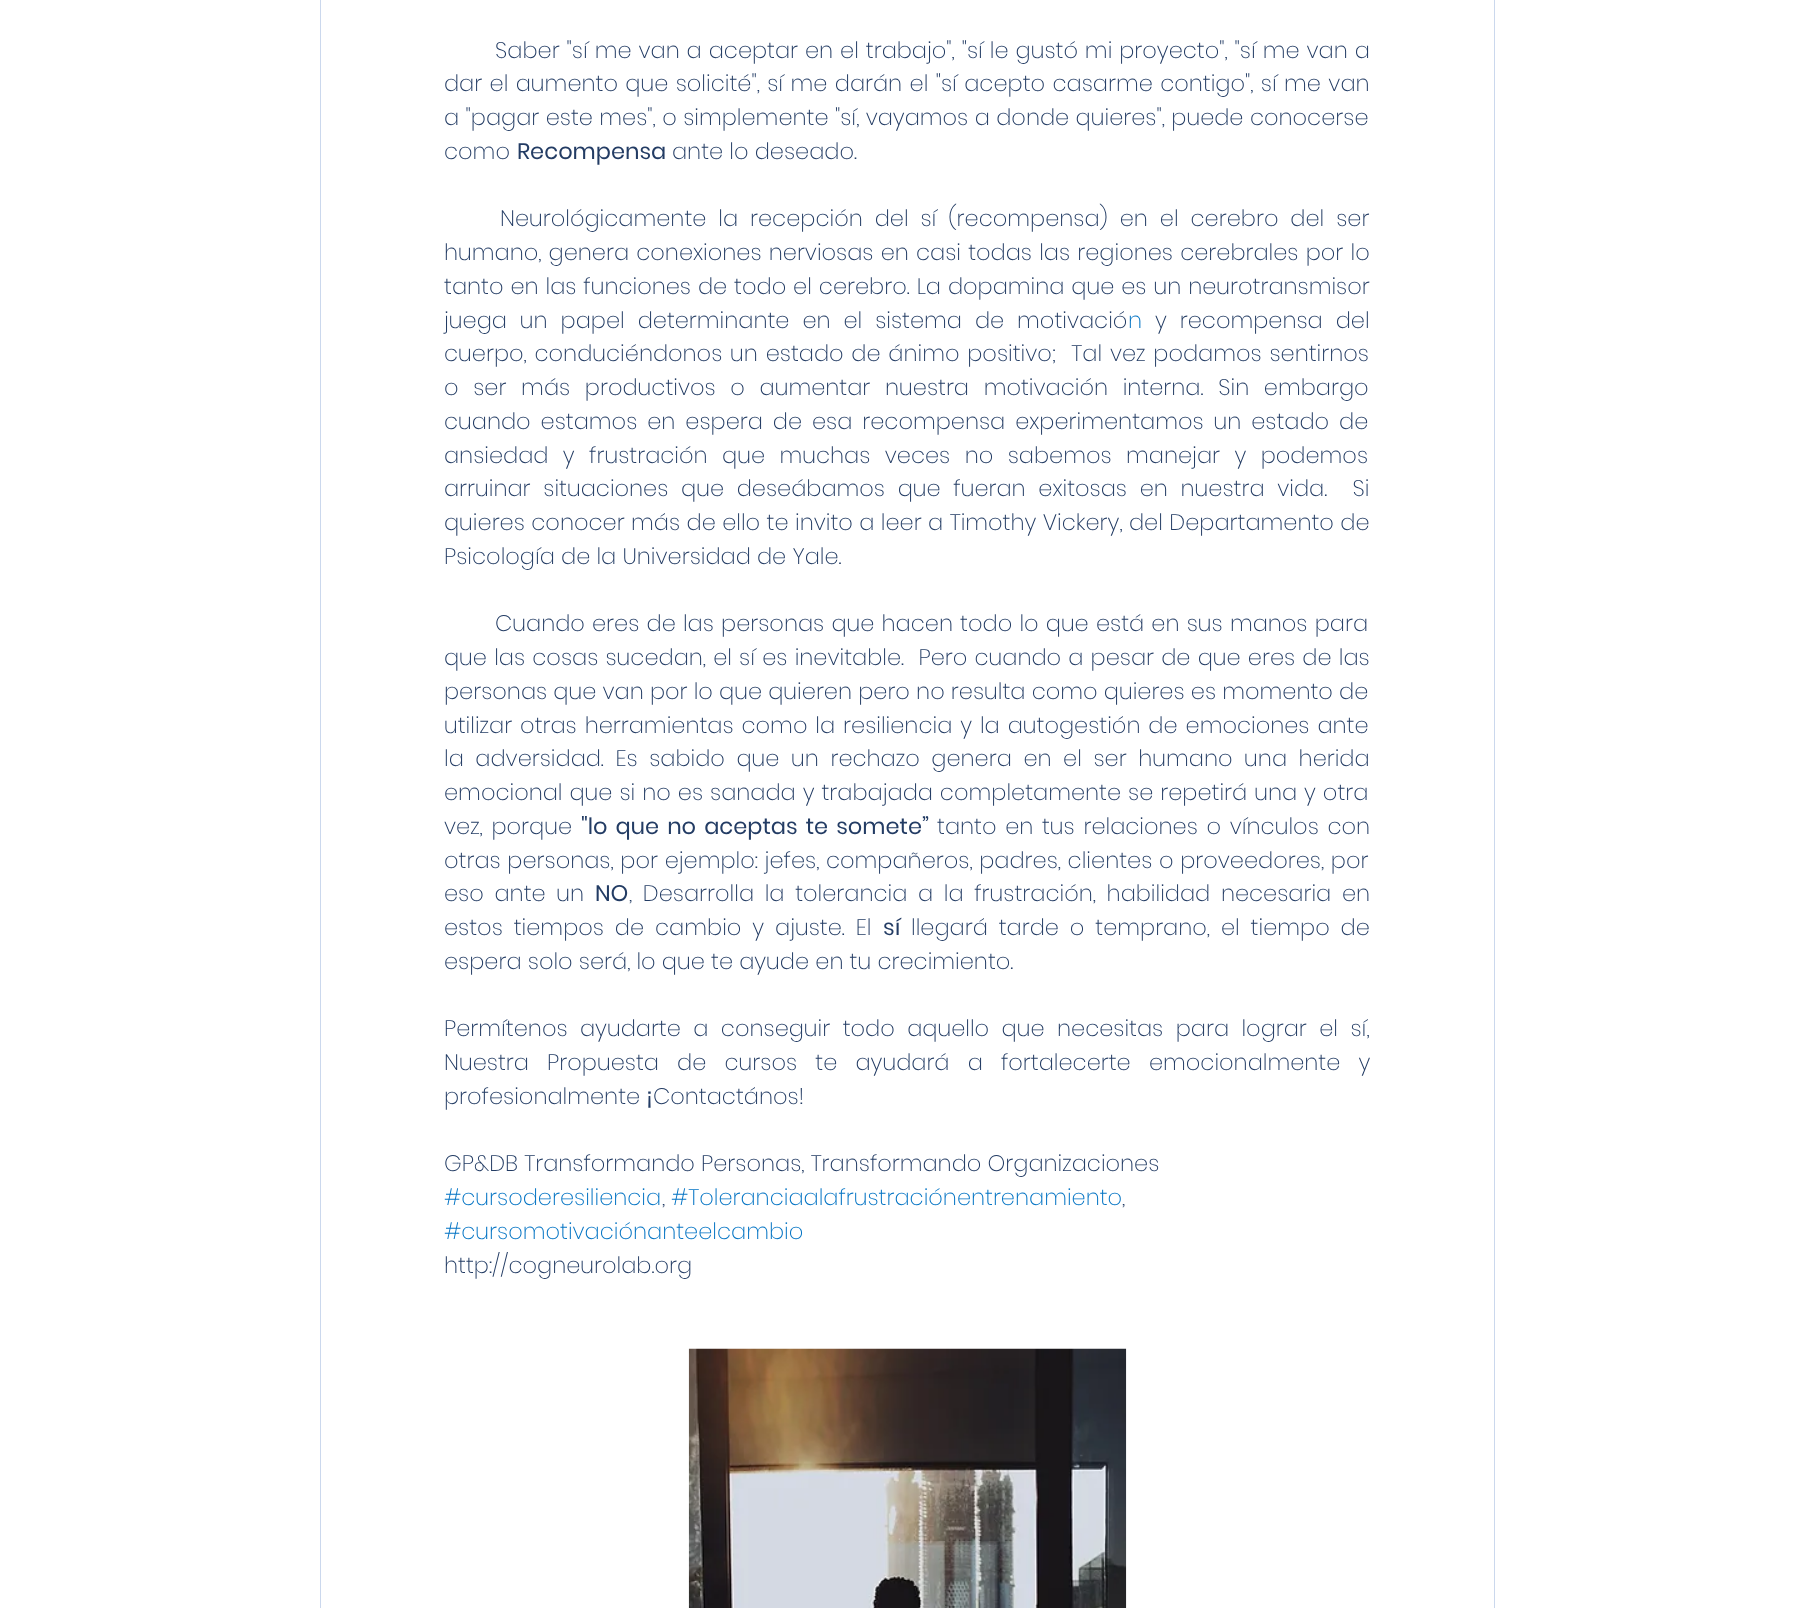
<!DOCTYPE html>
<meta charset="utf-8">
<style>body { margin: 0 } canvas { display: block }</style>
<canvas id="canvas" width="1813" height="1608"></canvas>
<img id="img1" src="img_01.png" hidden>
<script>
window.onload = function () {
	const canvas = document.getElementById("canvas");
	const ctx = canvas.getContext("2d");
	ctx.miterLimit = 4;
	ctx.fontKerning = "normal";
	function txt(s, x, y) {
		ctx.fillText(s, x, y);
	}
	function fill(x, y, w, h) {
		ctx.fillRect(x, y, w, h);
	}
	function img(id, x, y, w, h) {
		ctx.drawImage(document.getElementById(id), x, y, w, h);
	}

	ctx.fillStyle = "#FFFFFF";
	fill(0, 0, 1813, 1608);
	ctx.strokeStyle = "#CBD8ED";
	ctx.strokeRect(320.5, -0.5, 1174, 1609);
	img("img1", 688, 1348, 439, 260);
	ctx.wordSpacing = "0.75px";
	ctx.font = "200 22.5px Poppins";
	ctx.fillStyle = "#233C64";
	txt("Saber \"sí me van a aceptar en el trabajo\", \"sí le gustó mi proyecto\", \"sí me van a", 495, 58);
	ctx.wordSpacing = "1.2px";
	txt("dar el aumento que solicité\", sí me darán el \"sí acepto casarme contigo\", sí me van", 444, 91);
	ctx.wordSpacing = "0.25px";
	txt("a \"pagar este mes\", o simplemente \"sí, vayamos a donde quieres\", puede conocerse", 444, 125);
	ctx.wordSpacing = "0px";
	txt("como", 444, 159);
	ctx.font = "22.5px Poppins";
	txt("Recompensa", 517, 159);
	ctx.font = "200 22.5px Poppins";
	txt("ante lo deseado.", 672, 159);
	ctx.wordSpacing = "5.75px";
	txt("Neurológicamente la recepción del sí (recompensa) en el cerebro del ser", 500, 226);
	ctx.wordSpacing = "1px";
	txt("humano, genera conexiones nerviosas en casi todas las regiones cerebrales por lo", 444, 260);
	ctx.wordSpacing = "0.75px";
	txt("tanto en las funciones de todo el cerebro. La dopamina que es un neurotransmisor", 444, 294);
	ctx.wordSpacing = "6.75px";
	txt("juega un papel determinante en el sistema de motivació", 444, 328);
	ctx.wordSpacing = "0px";
	ctx.fillStyle = "#0474C4";
	txt("n", 1128, 328);
	ctx.wordSpacing = "6.75px";
	ctx.fillStyle = "#233C64";
	txt("y recompensa del", 1155, 328);
	ctx.wordSpacing = "1.6px";
	txt("cuerpo, conduciéndonos un estado de ánimo positivo;  Tal vez podamos sentirnos", 444, 361);
	ctx.wordSpacing = "8.5px";
	txt("o ser más productivos o aumentar nuestra motivación interna. Sin embargo", 444, 395);
	ctx.wordSpacing = "3.75px";
	txt("cuando estamos en espera de esa recompensa experimentamos un estado de", 444, 429);
	ctx.wordSpacing = "8.25px";
	txt("ansiedad y frustración que muchas veces no sabemos manejar y podemos", 444, 463);
	ctx.wordSpacing = "6.5px";
	txt("arruinar situaciones que deseábamos que fueran exitosas en nuestra vida.  Si", 444, 496);
	ctx.wordSpacing = "0.25px";
	txt("quieres conocer más de ello te invito a leer a Timothy Vickery, del Departamento de", 444, 530);
	ctx.wordSpacing = "0px";
	txt("Psicología de la Universidad de Yale.", 444, 564);
	ctx.wordSpacing = "1px";
	txt("Cuando eres de las personas que hacen todo lo que está en sus manos para", 495, 631);
	txt("que las cosas sucedan, el sí es inevitable.  Pero cuando a pesar de que eres de las", 444, 665);
	ctx.wordSpacing = "0px";
	txt("personas que van por lo que quieren pero no resulta como quieres es momento de", 444, 699);
	ctx.wordSpacing = "1.75px";
	txt("utilizar otras herramientas como la resiliencia y la autogestión de emociones ante", 444, 733);
	ctx.wordSpacing = "5.4px";
	txt("la adversidad. Es sabido que un rechazo genera en el ser humano una herida", 444, 766);
	ctx.wordSpacing = "0.8px";
	txt("emocional que si no es sanada y trabajada completamente se repetirá una y otra", 444, 800);
	ctx.wordSpacing = "2.5px";
	txt("vez, porque", 444, 834);
	ctx.font = "22.5px Poppins";
	txt("\"lo que no aceptas te somete”", 581, 834);
	ctx.font = "200 22.5px Poppins";
	txt("tanto en tus relaciones o vínculos con", 937, 834);
	ctx.wordSpacing = "0.5px";
	txt("otras personas, por ejemplo: jefes, compañeros, padres, clientes o proveedores, por", 444, 868);
	ctx.wordSpacing = "4.5px";
	txt("eso ante un", 444, 901);
	ctx.wordSpacing = "0px";
	ctx.font = "22.5px Poppins";
	txt("NO", 595, 901);
	ctx.wordSpacing = "4.5px";
	ctx.font = "200 22.5px Poppins";
	txt(", Desarrolla la tolerancia a la frustración, habilidad necesaria en", 629, 901);
	ctx.wordSpacing = "4.75px";
	txt("estos tiempos de cambio y ajuste. El", 444, 935);
	ctx.wordSpacing = "0px";
	ctx.font = "22.5px Poppins";
	txt("sí", 883, 935);
	ctx.wordSpacing = "4.75px";
	ctx.font = "200 22.5px Poppins";
	txt("llegará tarde o temprano, el tiempo de", 911, 935);
	ctx.wordSpacing = "0px";
	txt("espera solo será, lo que te ayude en tu crecimiento.", 444, 969);
	ctx.wordSpacing = "6.25px";
	txt("Permítenos ayudarte a conseguir todo aquello que necesitas para lograr el sí,", 444, 1036);
	ctx.wordSpacing = "12px";
	txt("Nuestra Propuesta de cursos te ayudará a fortalecerte emocionalmente y", 444, 1070);
	ctx.wordSpacing = "0px";
	txt("profesionalmente", 444, 1104);
	ctx.font = "22.5px Poppins";
	txt("¡", 646, 1104);
	ctx.font = "200 22.5px Poppins";
	txt("Contactános!", 653, 1104);
	txt("GP&DB Transformando Personas, Transformando Organizaciones", 444, 1171);
	ctx.fillStyle = "#0474C4";
	txt("#cursoderesiliencia", 444, 1205);
	ctx.fillStyle = "#233C64";
	txt(",", 662, 1205);
	ctx.fillStyle = "#0474C4";
	txt("#Toleranciaalafrustraciónentrenamiento", 671, 1205);
	ctx.fillStyle = "#233C64";
	txt(",", 1122, 1205);
	ctx.fillStyle = "#0474C4";
	txt("#cursomotivaciónanteelcambio", 444, 1239);
	ctx.fillStyle = "#233C64";
	txt("http://cogneurolab.org", 444, 1273);
};
</script>
